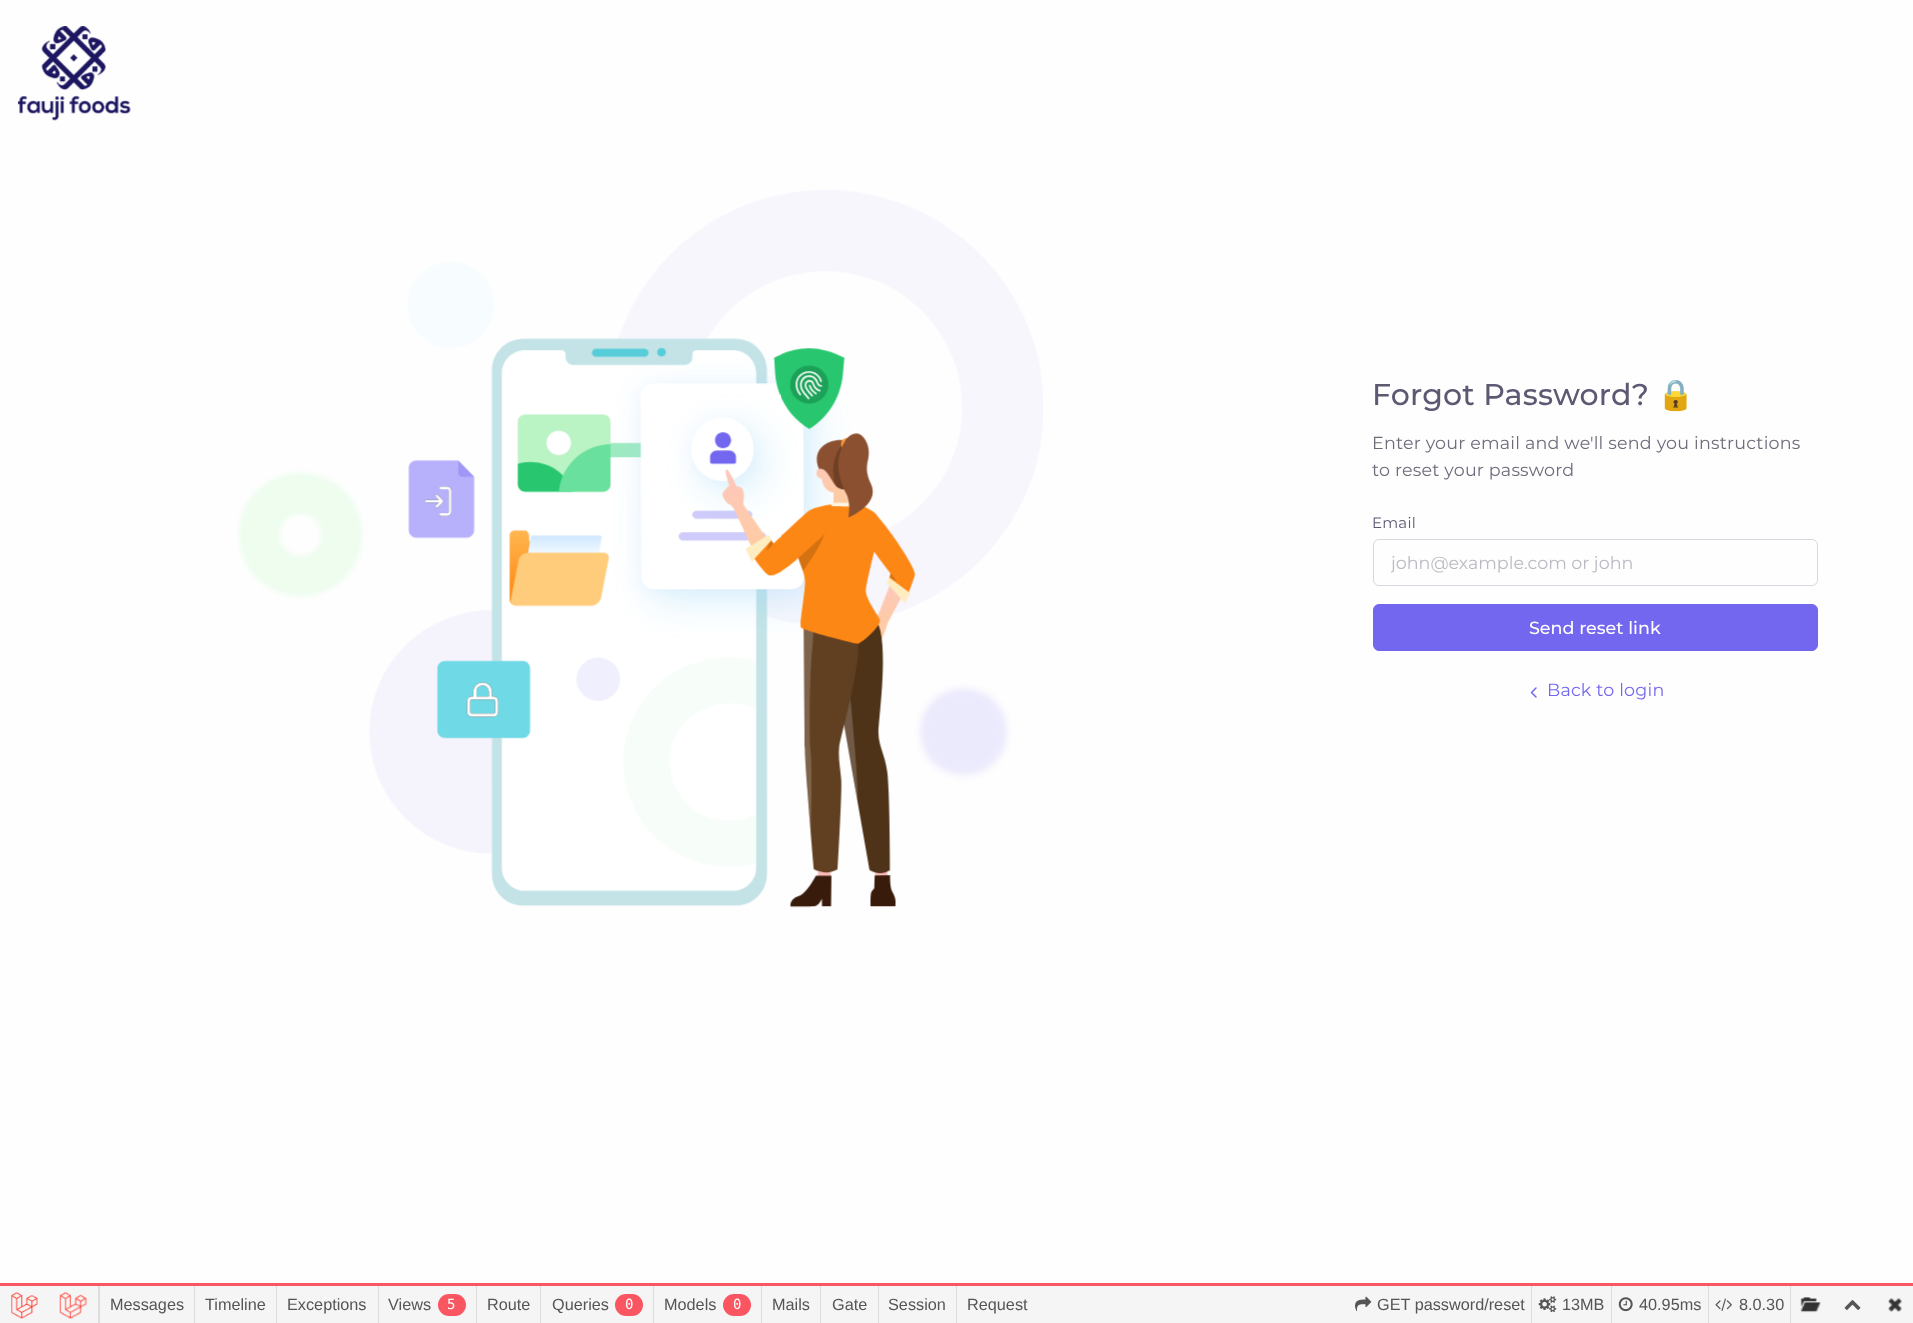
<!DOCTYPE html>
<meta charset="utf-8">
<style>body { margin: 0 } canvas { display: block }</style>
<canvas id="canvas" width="1913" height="1323"></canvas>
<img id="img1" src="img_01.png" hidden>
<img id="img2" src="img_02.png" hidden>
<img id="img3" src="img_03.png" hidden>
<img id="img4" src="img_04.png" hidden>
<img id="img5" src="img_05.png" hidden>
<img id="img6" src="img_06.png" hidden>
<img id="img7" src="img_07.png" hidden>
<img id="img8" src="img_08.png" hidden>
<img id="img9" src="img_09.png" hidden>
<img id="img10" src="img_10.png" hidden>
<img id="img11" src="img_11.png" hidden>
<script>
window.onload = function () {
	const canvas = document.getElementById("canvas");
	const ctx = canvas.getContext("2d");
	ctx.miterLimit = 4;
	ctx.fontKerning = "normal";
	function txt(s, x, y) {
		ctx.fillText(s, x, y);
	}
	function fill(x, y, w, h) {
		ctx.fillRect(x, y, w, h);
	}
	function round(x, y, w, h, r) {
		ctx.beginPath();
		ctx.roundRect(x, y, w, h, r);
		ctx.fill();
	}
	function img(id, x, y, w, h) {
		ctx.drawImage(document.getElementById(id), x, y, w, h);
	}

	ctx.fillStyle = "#FEFEFE";
	fill(0, 0, 1913, 1323);
	img("img1", 18, 26, 113, 95);
	img("img2", 237, 190, 806, 718);
	ctx.beginPath();
	ctx.roundRect(1373.5, 539.5, 444, 46, 5.5);
	ctx.strokeStyle = "#D8D6DE";
	ctx.stroke();
	ctx.fillStyle = "#7367F0";
	ctx.beginPath();
	ctx.roundRect(1373.5, 604.5, 444, 46, 5.5);
	ctx.fill();
	ctx.strokeStyle = "#7367F0";
	ctx.stroke();
	ctx.beginPath();
	ctx.moveTo(1536, 697);
	ctx.lineTo(1531.5, 692.5);
	ctx.lineTo(1536, 688);
	ctx.lineWidth = 1.5;
	ctx.lineCap = "round";
	ctx.lineJoin = "round";
	ctx.stroke();
	ctx.fillStyle = "#FA5661";
	fill(0, 1283, 1913, 3);
	ctx.fillStyle = "#F5F5F5";
	fill(0, 1286, 1913, 37);
	img("img3", 11, 1292, 27, 27);
	img("img4", 59, 1292, 28, 28);
	ctx.fillStyle = "#DDDDDD";
	fill(98, 1286, 2, 37);
	fill(194, 1286, 1, 37);
	fill(276, 1286, 1, 37);
	fill(378, 1286, 1, 37);
	ctx.fillStyle = "#FA5661";
	round(438, 1294, 28, 22, 11);
	ctx.fillStyle = "#DDDDDD";
	fill(476, 1286, 1, 37);
	fill(540, 1286, 1, 37);
	ctx.fillStyle = "#FA5661";
	round(615, 1294, 28, 22, 11);
	ctx.fillStyle = "#DDDDDD";
	fill(653, 1286, 1, 37);
	ctx.fillStyle = "#FA5661";
	round(723, 1294, 28, 22, 11);
	ctx.fillStyle = "#DDDDDD";
	fill(761, 1286, 1, 37);
	fill(820, 1286, 1, 37);
	fill(878, 1286, 1, 37);
	fill(956, 1286, 1, 37);
	fill(1531, 1286, 1, 37);
	img("img5", 1355, 1296, 17, 16);
	fill(1611, 1286, 1, 37);
	img("img6", 1538, 1296, 19, 17);
	fill(1708, 1286, 1, 37);
	img("img7", 1618, 1297, 15, 15);
	fill(1790, 1286, 1, 37);
	img("img8", 1715, 1298, 17, 13);
	img("img9", 1800, 1297, 21, 16);
	img("img10", 1844, 1300, 17, 10);
	img("img11", 1888, 1298, 14, 14);
	ctx.letterSpacing = "0.2px";
	ctx.font = "500 30px Montserrat";
	ctx.fillStyle = "#5E5873";
	txt("Forgot Password?", 1372, 405);
	ctx.font = "30px Noto Color Emoji";
	txt("🔒", 1657, 405);
	ctx.font = "17.5px Montserrat";
	ctx.fillStyle = "#6E6B7B";
	txt("Enter your email and we'll send you instructions", 1372, 449);
	txt("to reset your password", 1372, 476);
	ctx.font = "15px Montserrat";
	ctx.fillStyle = "#5E5873";
	txt("Email", 1372, 528);
	ctx.save();
	ctx.beginPath();
	ctx.rect(1391, 551, 408, 23);
	ctx.clip();
	ctx.letterSpacing = "0px";
	ctx.font = "17.5px Montserrat";
	ctx.fillStyle = "#B9B9C3";
	txt("john@example.com or john", 1391, 569);
	ctx.restore();
	ctx.letterSpacing = "0px";
	ctx.font = "500 17.5px Montserrat";
	ctx.fillStyle = "#FFFFFF";
	txt("Send reset link", 1529, 634);
	ctx.letterSpacing = "0.2px";
	ctx.font = "17.5px Montserrat";
	ctx.fillStyle = "#7367F0";
	txt("Back to login", 1547, 696);
	ctx.letterSpacing = "0px";
	ctx.font = "16.25px Liberation Sans";
	ctx.fillStyle = "#555555";
	txt("Messages", 110, 1310);
	txt("Timeline", 205, 1310);
	txt("Exceptions", 287, 1310);
	txt("Views", 388, 1310);
	ctx.font = "14px DejaVu Sans Mono";
	ctx.fillStyle = "#FFFFFF";
	txt("5", 447, 1309);
	ctx.font = "16.25px Liberation Sans";
	ctx.fillStyle = "#555555";
	txt("Route", 487, 1310);
	txt("Queries", 552, 1310);
	ctx.font = "14px DejaVu Sans Mono";
	ctx.fillStyle = "#FFFFFF";
	txt("0", 625, 1309);
	ctx.font = "16.25px Liberation Sans";
	ctx.fillStyle = "#555555";
	txt("Models", 664, 1310);
	ctx.font = "14px DejaVu Sans Mono";
	ctx.fillStyle = "#FFFFFF";
	txt("0", 733, 1309);
	ctx.font = "16.25px Liberation Sans";
	ctx.fillStyle = "#555555";
	txt("Mails", 772, 1310);
	txt("Gate", 832, 1310);
	txt("Session", 888, 1310);
	txt("Request", 967, 1310);
	txt("GET password/reset", 1377, 1310);
	txt("13MB", 1562, 1310);
	txt("40.95ms", 1639, 1310);
	txt("8.0.30", 1739, 1310);
};
</script>
